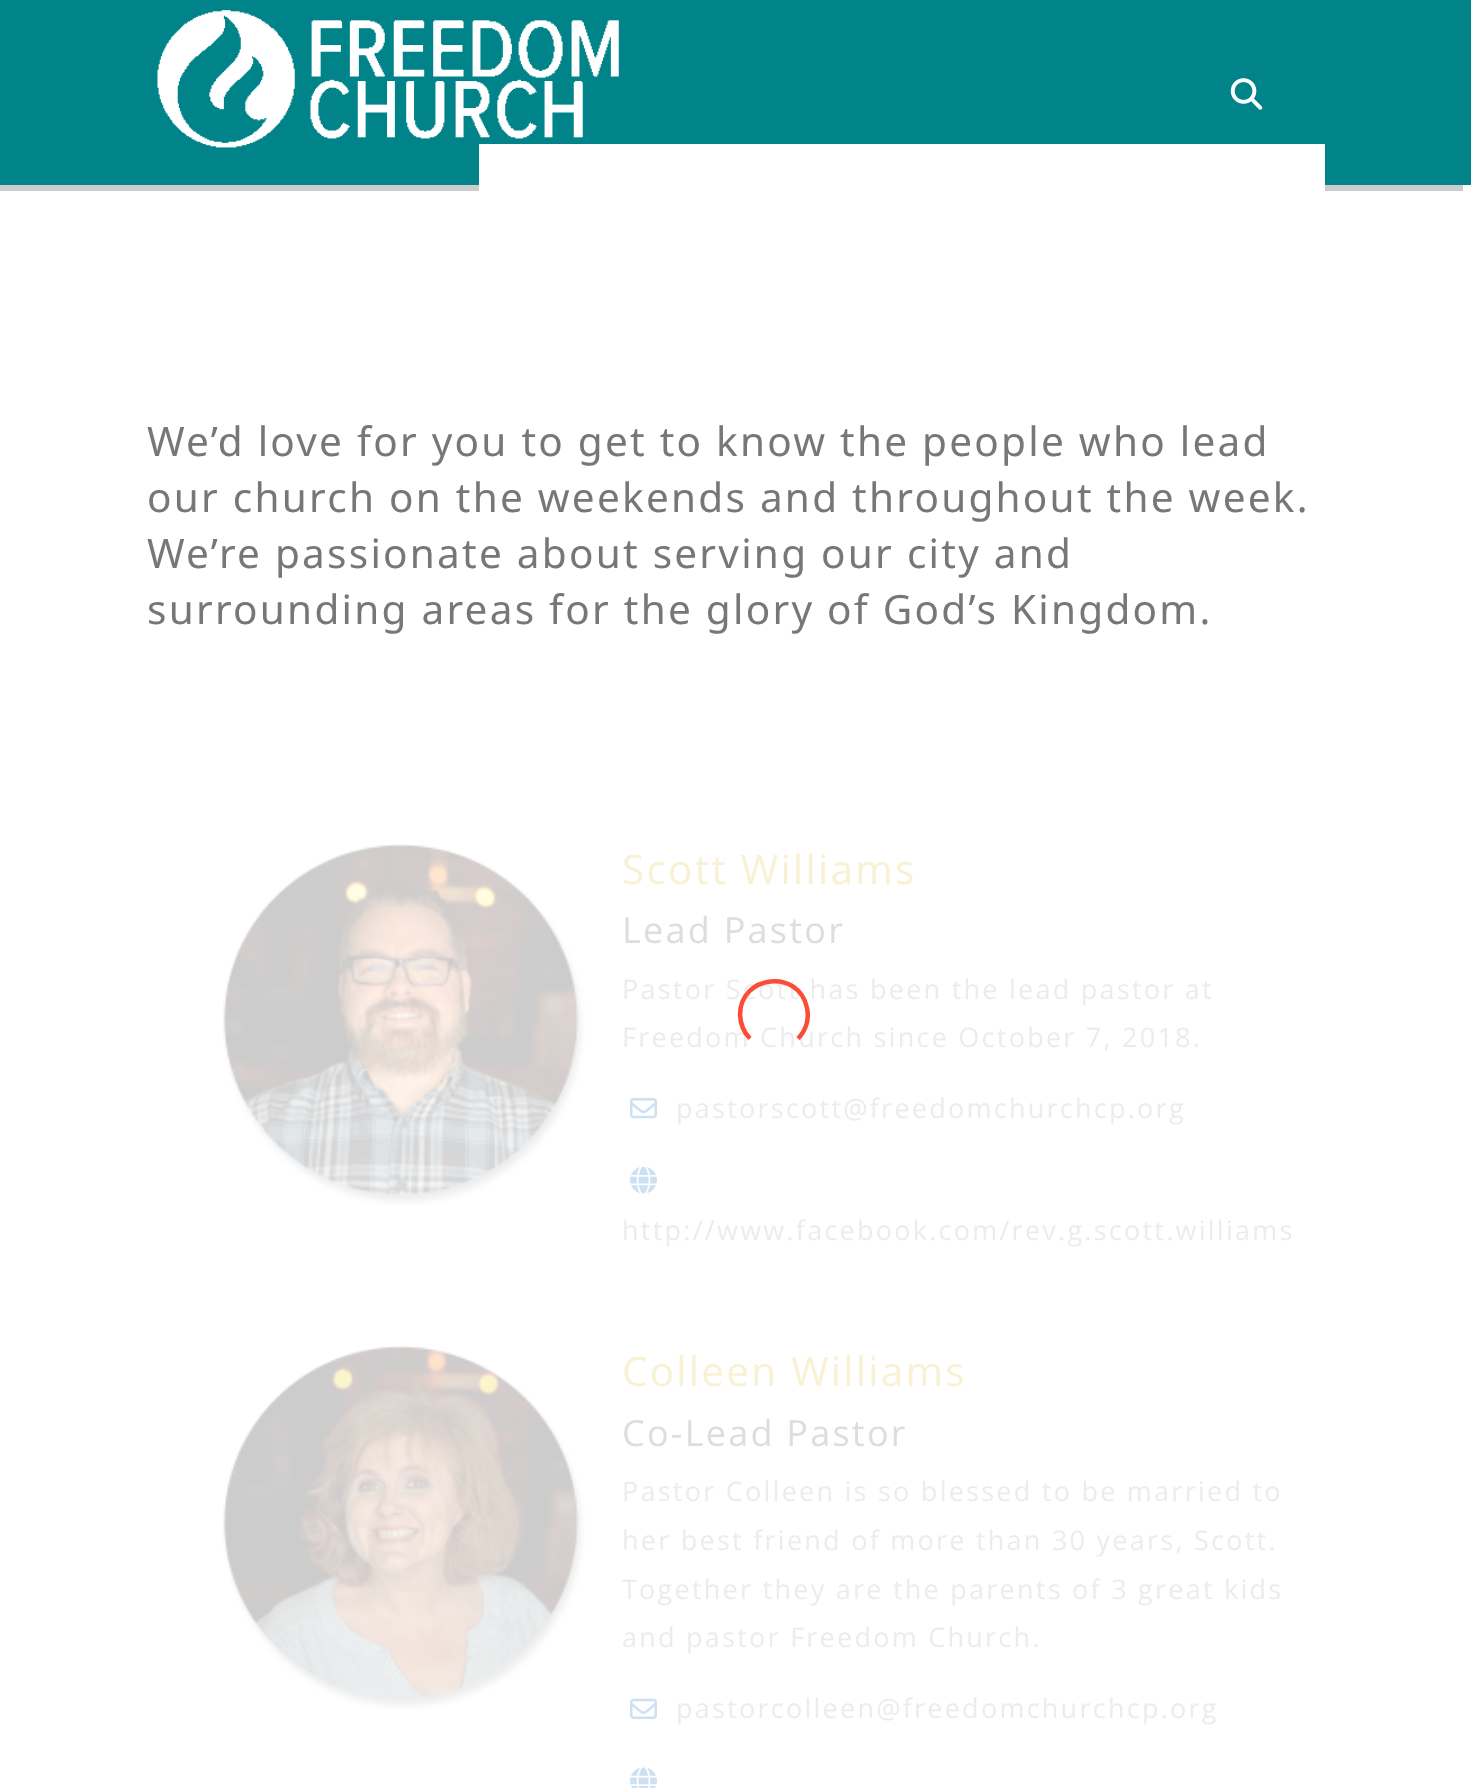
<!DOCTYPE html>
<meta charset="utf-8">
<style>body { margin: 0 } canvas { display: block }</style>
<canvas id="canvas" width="1471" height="1788"></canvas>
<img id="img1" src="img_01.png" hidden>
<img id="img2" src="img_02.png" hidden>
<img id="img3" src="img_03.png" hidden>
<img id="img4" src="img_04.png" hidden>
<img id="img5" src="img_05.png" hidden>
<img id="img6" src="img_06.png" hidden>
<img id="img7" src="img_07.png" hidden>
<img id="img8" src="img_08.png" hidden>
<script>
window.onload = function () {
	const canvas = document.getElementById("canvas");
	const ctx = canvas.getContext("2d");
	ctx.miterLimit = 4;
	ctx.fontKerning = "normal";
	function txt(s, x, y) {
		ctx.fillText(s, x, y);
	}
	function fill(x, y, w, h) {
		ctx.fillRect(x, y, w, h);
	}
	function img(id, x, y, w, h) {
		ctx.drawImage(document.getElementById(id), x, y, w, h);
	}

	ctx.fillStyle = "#FFFFFF";
	fill(0, 0, 1471, 1788);
	ctx.fillStyle = "#CCCCCC";
	ctx.beginPath();
	ctx.moveTo(-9, 7);
	ctx.lineTo(-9, 191);
	ctx.lineTo(1463, 191);
	ctx.lineTo(1463, 184);
	ctx.lineTo(0, 184);
	ctx.lineTo(0, 7);
	ctx.closePath();
	ctx.fill();
	ctx.fillStyle = "#018489";
	fill(0, 0, 1471, 185);
	img("img1", 157, 10, 462, 138);
	img("img2", 1230, 78, 33, 32);
	ctx.fillStyle = "#FFFFFF";
	fill(479, 144, 846, 47);
	img("img3", 222, 844, 364, 362);
	img("img4", 630, 1098, 27, 21);
	img("img5", 630, 1166, 27, 28);
	img("img6", 222, 1345, 364, 365);
	img("img7", 630, 1698, 27, 21);
	img("img8", 630, 1767, 27, 21);
	ctx.letterSpacing = "2.25px";
	ctx.font = "40.5px Noto Sans";
	ctx.fillStyle = "#777777";
	txt("We’d love for you to get to know the people who lead", 147, 456);
	txt("our church on the weekends and throughout the week.", 147, 512);
	txt("We’re passionate about serving our city and", 147, 568);
	txt("surrounding areas for the glory of God’s Kingdom.", 147, 624);
	ctx.font = "40.5px Open Sans";
	ctx.fillStyle = "#F9F1D3";
	txt("Scott Williams", 622, 884);
	ctx.font = "36px Open Sans";
	ctx.fillStyle = "#DDDDDD";
	txt("Lead Pastor", 622, 943);
	ctx.font = "27px Open Sans";
	ctx.fillStyle = "#ECECED";
	txt("Pastor Scott has been the lead pastor at", 622, 999);
	txt("Freedom Church since October 7, 2018.", 622, 1047);
	txt("pastorscott@freedomchurchcp.org", 676, 1118);
	txt("http://www.facebook.com/rev.g.scott.williams", 622, 1240);
	ctx.beginPath();
	ctx.moveTo(750, 1038.5);
	ctx.bezierCurveTo(744, 1032.5, 740.5, 1023.5, 740, 1015);
	ctx.bezierCurveTo(740, 974.5, 799, 968.5, 807, 1008);
	ctx.bezierCurveTo(809.5, 1019, 806, 1030.5, 798, 1038.5);
	ctx.strokeStyle = "#FB4C35";
	ctx.lineWidth = 4.5;
	ctx.stroke();
	ctx.font = "40.5px Open Sans";
	ctx.fillStyle = "#F9F1D3";
	txt("Colleen Williams", 622, 1386);
	ctx.font = "36px Open Sans";
	ctx.fillStyle = "#DDDDDD";
	txt("Co-Lead Pastor", 622, 1446);
	ctx.font = "27px Open Sans";
	ctx.fillStyle = "#ECECED";
	txt("Pastor Colleen is so blessed to be married to", 622, 1501);
	txt("her best friend of more than 30 years, Scott.", 622, 1550);
	txt("Together they are the parents of 3 great kids", 622, 1599);
	txt("and pastor Freedom Church.", 622, 1647);
	txt("pastorcolleen@freedomchurchcp.org", 676, 1718);
};
</script>
